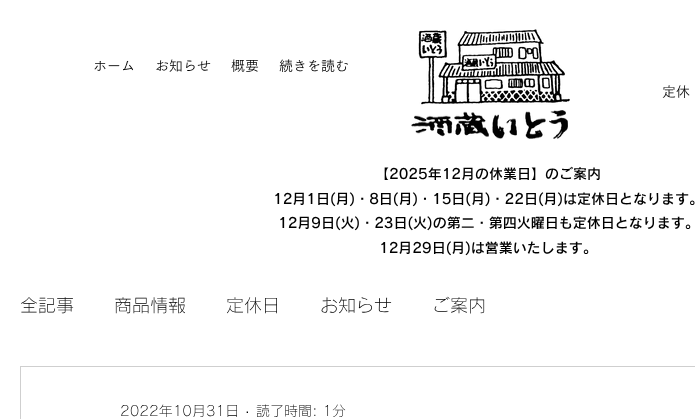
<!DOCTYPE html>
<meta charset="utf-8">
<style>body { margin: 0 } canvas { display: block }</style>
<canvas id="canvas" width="695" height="419"></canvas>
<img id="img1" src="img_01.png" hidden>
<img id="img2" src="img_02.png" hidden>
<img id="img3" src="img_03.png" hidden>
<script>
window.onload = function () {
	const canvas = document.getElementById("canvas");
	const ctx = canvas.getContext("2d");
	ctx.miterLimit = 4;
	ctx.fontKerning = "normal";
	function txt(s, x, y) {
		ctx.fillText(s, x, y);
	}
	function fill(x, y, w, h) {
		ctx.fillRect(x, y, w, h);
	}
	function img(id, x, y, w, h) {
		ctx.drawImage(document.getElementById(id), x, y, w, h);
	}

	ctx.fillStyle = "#FFFFFF";
	fill(0, 0, 695, 419);
	img("img1", 418, 29, 152, 76);
	img("img2", 411, 111, 78, 26);
	img("img3", 492, 110, 76, 29);
	ctx.strokeStyle = "#CFCFCF";
	ctx.strokeRect(20.5, 366.5, 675, 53);
	ctx.font = "14px 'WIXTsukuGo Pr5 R'";
	ctx.fillStyle = "#000000";
	txt("ホーム", 93, 71);
	txt("お知らせ", 155, 71);
	txt("概要", 231, 71);
	txt("続きを読む", 279, 71);
	txt("定休", 662, 97);
	ctx.font = "600 14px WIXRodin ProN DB";
	txt("【2025年12月の休業日】のご案内", 375, 179);
	txt("12月1日(月)・8日(月)・15日(月)・22日(月)は定休日となります。", 273, 204);
	txt("12月9日(火)・23日(火)の第二・第四火曜日も定休日となります。", 278, 228);
	txt("12月29日(月)は営業いたします。", 379, 253);
	ctx.font = "300 18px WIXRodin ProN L";
	txt("全記事", 20, 312);
	txt("商品情報", 114, 312);
	txt("定休日", 226, 312);
	txt("お知らせ", 320, 312);
	txt("ご案内", 432, 312);
	ctx.font = "300 14px WIXRodin ProN L";
	txt("2022年10月31日", 120, 416);
	ctx.font = "14px Liberation Sans";
	txt("·", 245, 416);
	ctx.font = "300 14px WIXRodin ProN L";
	txt("読了時間: 1分", 256, 416);
};
</script>
